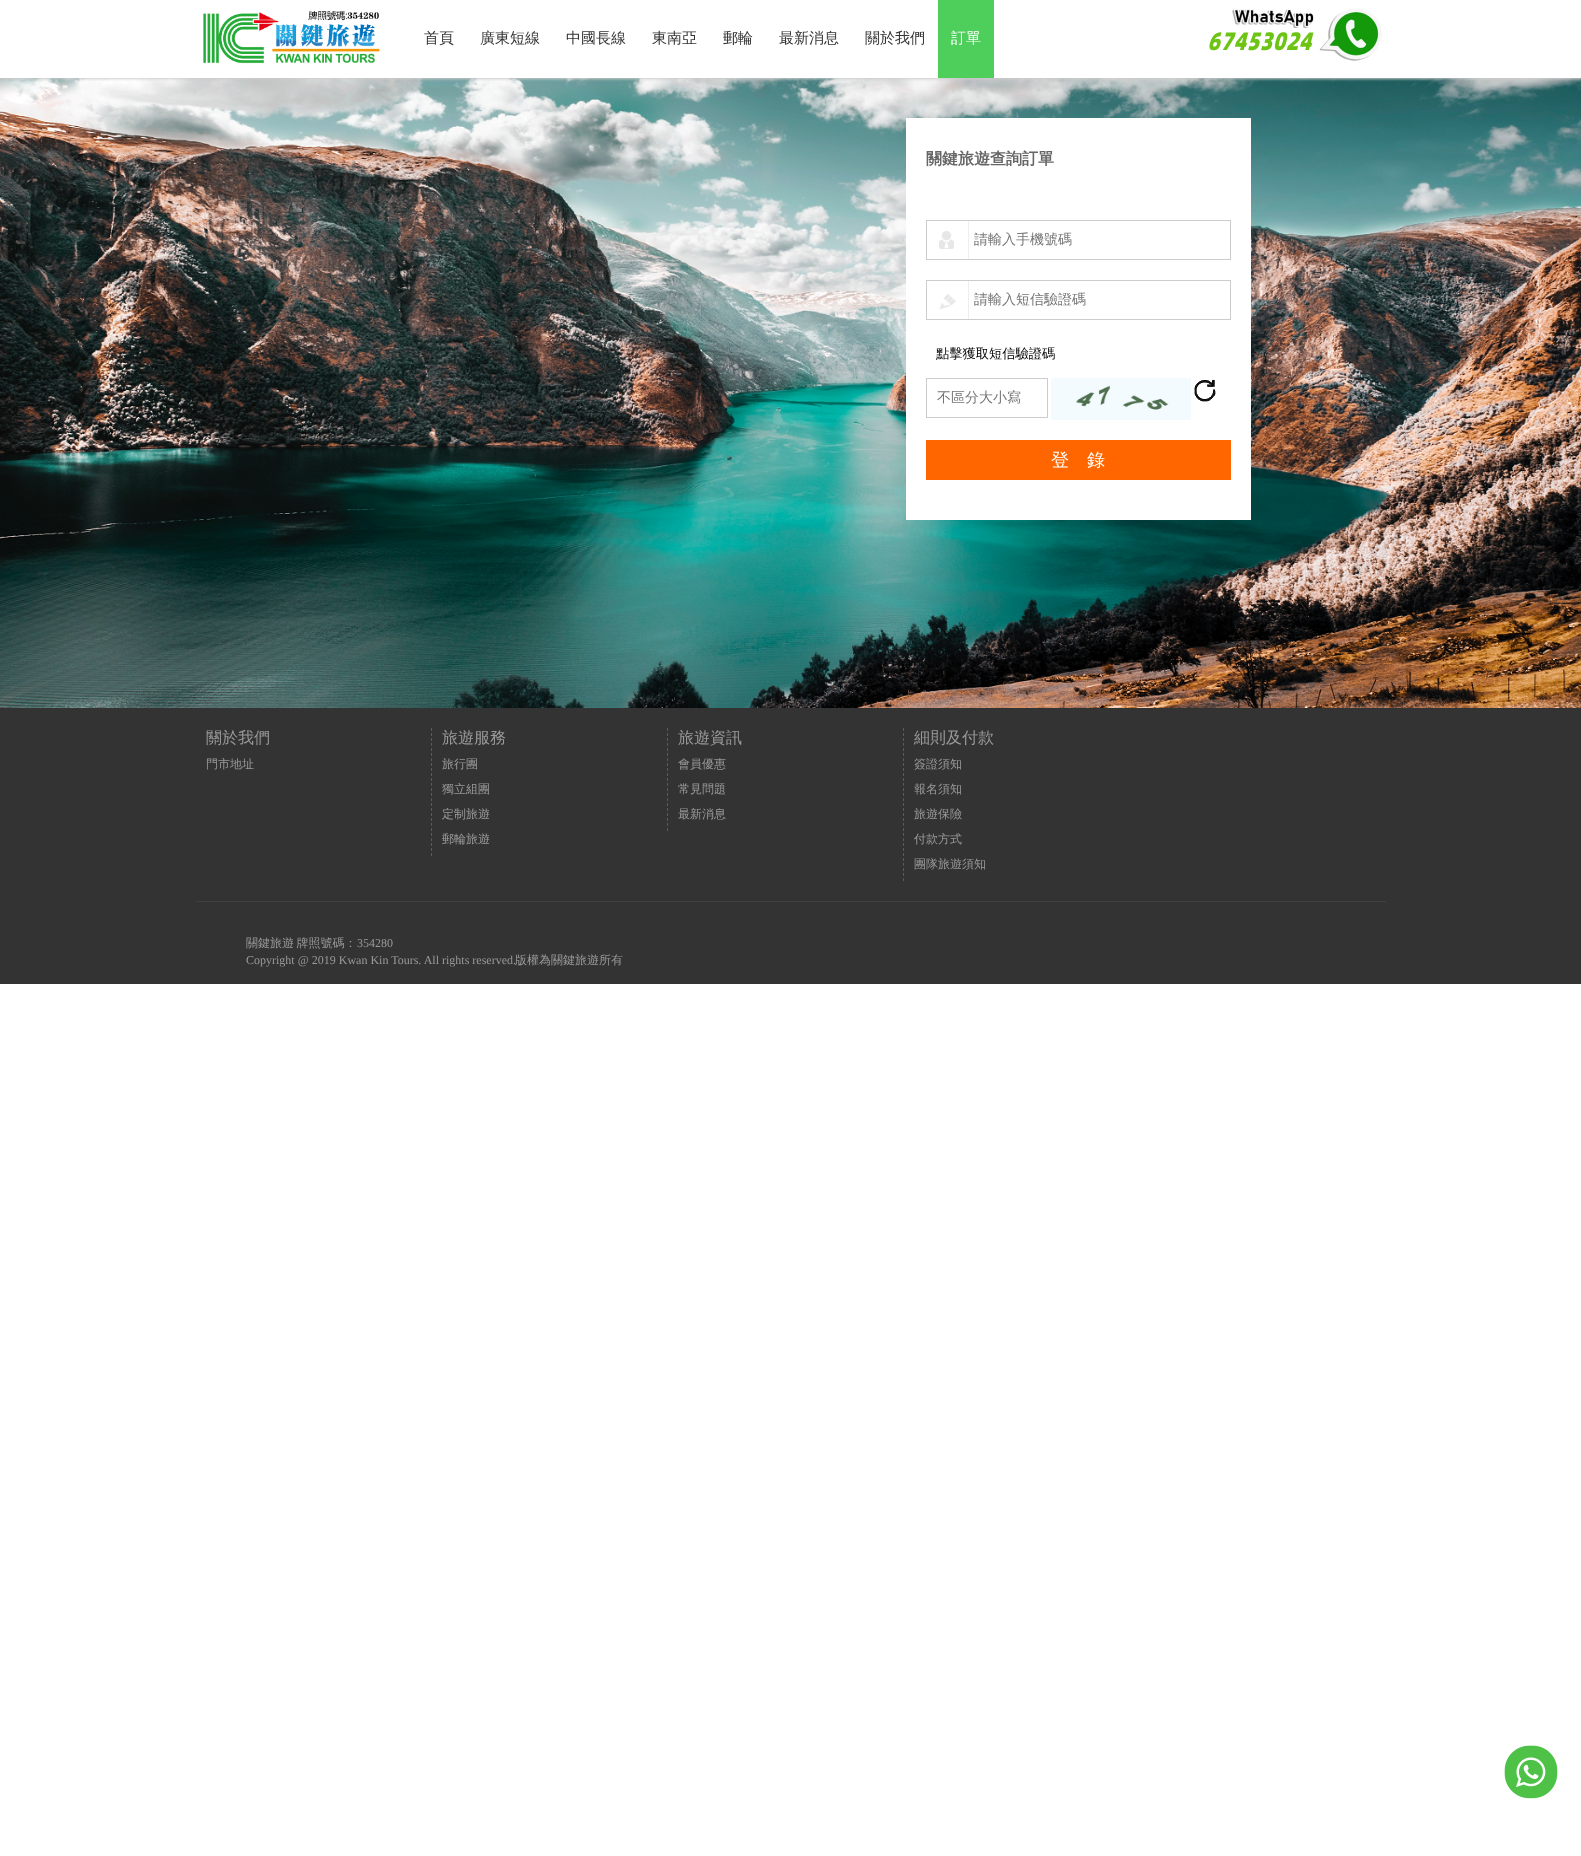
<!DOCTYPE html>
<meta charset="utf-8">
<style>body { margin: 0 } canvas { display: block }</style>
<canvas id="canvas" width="1581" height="1856"></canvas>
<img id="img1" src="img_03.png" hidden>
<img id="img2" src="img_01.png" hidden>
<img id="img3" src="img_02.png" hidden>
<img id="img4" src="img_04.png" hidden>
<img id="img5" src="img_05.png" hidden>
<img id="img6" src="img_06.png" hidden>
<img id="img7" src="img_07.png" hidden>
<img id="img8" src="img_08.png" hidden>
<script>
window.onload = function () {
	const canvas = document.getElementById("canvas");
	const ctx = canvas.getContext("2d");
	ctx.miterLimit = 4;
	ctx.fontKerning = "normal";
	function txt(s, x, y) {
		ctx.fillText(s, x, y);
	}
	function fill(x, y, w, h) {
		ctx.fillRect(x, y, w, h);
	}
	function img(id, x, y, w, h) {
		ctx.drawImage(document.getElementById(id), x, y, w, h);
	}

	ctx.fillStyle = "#FFFFFF";
	fill(0, 0, 1581, 1856);
	img("img1", 0, 78, 1581, 630);
	ctx.save();
	ctx.beginPath();
	ctx.rect(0, 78, 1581, 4);
	ctx.clip();
	ctx.fillStyle = "#CCCCCC";
	ctx.filter = "blur(1.5px)";
	ctx.beginPath();
	ctx.rect(0, 1, 1581, 78);
	ctx.fill();
	ctx.filter = "none";
	ctx.restore();
	img("img2", 203, 10, 177, 54);
	ctx.fillStyle = "#4ECF5B";
	fill(938, 0, 56, 78);
	img("img3", 1209, 8, 173, 53);
	ctx.fillStyle = "#FFFFFF";
	fill(906, 118, 345, 402);
	ctx.strokeStyle = "#CCCCCC";
	ctx.strokeRect(926.5, 220.5, 304, 39);
	img("img4", 939, 231, 15, 18);
	ctx.fillStyle = "#EEEEEE";
	fill(968, 221, 1, 38);
	ctx.strokeRect(926.5, 280.5, 304, 39);
	img("img5", 939, 294, 17, 15);
	fill(968, 281, 1, 38);
	ctx.strokeRect(926.5, 378.5, 121, 39);
	img("img6", 1051, 378, 140, 42);
	img("img7", 1194, 379, 22, 23);
	ctx.fillStyle = "#FF6600";
	fill(926, 440, 305, 40);
	ctx.fillStyle = "#333333";
	fill(0, 708, 1581, 276);
	ctx.beginPath();
	ctx.moveTo(431.5, 728);
	ctx.lineTo(431.5, 856);
	ctx.strokeStyle = "#5A5A5A";
	ctx.setLineDash([3, 2]);
	ctx.stroke();
	ctx.beginPath();
	ctx.moveTo(667.5, 728);
	ctx.lineTo(667.5, 831);
	ctx.stroke();
	ctx.beginPath();
	ctx.moveTo(903.5, 728);
	ctx.lineTo(903.5, 881);
	ctx.stroke();
	ctx.fillStyle = "#404040";
	fill(196, 901, 1190, 1);
	img("img8", 1504, 1745, 54, 54);
	ctx.font = "500 15px WenQuanYi Zen Hei";
	ctx.fillStyle = "#333333";
	txt("首頁", 424, 43);
	txt("廣東短線", 480, 43);
	txt("中國長線", 566, 43);
	txt("東南亞", 652, 43);
	txt("郵輪", 723, 43);
	txt("最新消息", 779, 43);
	txt("關於我們", 865, 43);
	ctx.fillStyle = "#FFFFFF";
	txt("訂單", 951, 43);
	ctx.font = "bold 16px WenQuanYi Zen Hei";
	ctx.fillStyle = "#666666";
	txt("關鍵旅遊查詢訂單", 926, 164);
	ctx.save();
	ctx.beginPath();
	ctx.rect(974, 231, 246, 18);
	ctx.clip();
	ctx.font = "500 14px WenQuanYi Zen Hei";
	ctx.fillStyle = "#757575";
	txt("請輸入手機號碼", 974, 244);
	ctx.restore();
	ctx.save();
	ctx.beginPath();
	ctx.rect(974, 291, 246, 18);
	ctx.clip();
	ctx.font = "500 14px WenQuanYi Zen Hei";
	ctx.fillStyle = "#757575";
	txt("請輸入短信驗證碼", 974, 304);
	ctx.restore();
	ctx.font = "500 13.25px WenQuanYi Zen Hei";
	ctx.fillStyle = "#000000";
	txt("點擊獲取短信驗證碼", 936, 358);
	ctx.font = "500 14px WenQuanYi Zen Hei";
	ctx.fillStyle = "#757575";
	txt("不區分大小寫", 937, 402);
	ctx.font = "500 18px WenQuanYi Zen Hei";
	ctx.fillStyle = "#FFFFFF";
	txt("登", 1051, 466);
	txt("錄", 1087, 466);
	ctx.font = "500 16px WenQuanYi Zen Hei";
	ctx.fillStyle = "#999999";
	txt("關於我們", 206, 743);
	ctx.font = "500 12px WenQuanYi Zen Hei";
	txt("門市地址", 206, 768);
	ctx.font = "500 16px WenQuanYi Zen Hei";
	txt("旅遊服務", 442, 743);
	ctx.font = "500 12px WenQuanYi Zen Hei";
	txt("旅行團", 442, 768);
	txt("獨立組團", 442, 793);
	txt("定制旅遊", 442, 818);
	txt("郵輪旅遊", 442, 843);
	ctx.font = "500 16px WenQuanYi Zen Hei";
	txt("旅遊資訊", 678, 743);
	ctx.font = "500 12px WenQuanYi Zen Hei";
	txt("會員優惠", 678, 768);
	txt("常見問題", 678, 793);
	txt("最新消息", 678, 818);
	ctx.font = "500 16px WenQuanYi Zen Hei";
	txt("細則及付款", 914, 743);
	ctx.font = "500 12px WenQuanYi Zen Hei";
	txt("簽證須知", 914, 768);
	txt("報名須知", 914, 793);
	txt("旅遊保險", 914, 818);
	txt("付款方式", 914, 843);
	txt("團隊旅遊須知", 914, 868);
	ctx.wordSpacing = "-1px";
	txt("關鍵旅遊 牌照號碼：", 246, 947);
	ctx.wordSpacing = "0px";
	ctx.font = "12px Liberation Serif";
	txt("354280", 357, 947);
	txt("Copyright @ 2019 Kwan Kin Tours. All rights reserved.", 246, 964);
	ctx.font = "500 12px WenQuanYi Zen Hei";
	txt("版權為關鍵旅遊所有", 515, 964);
};
</script>
